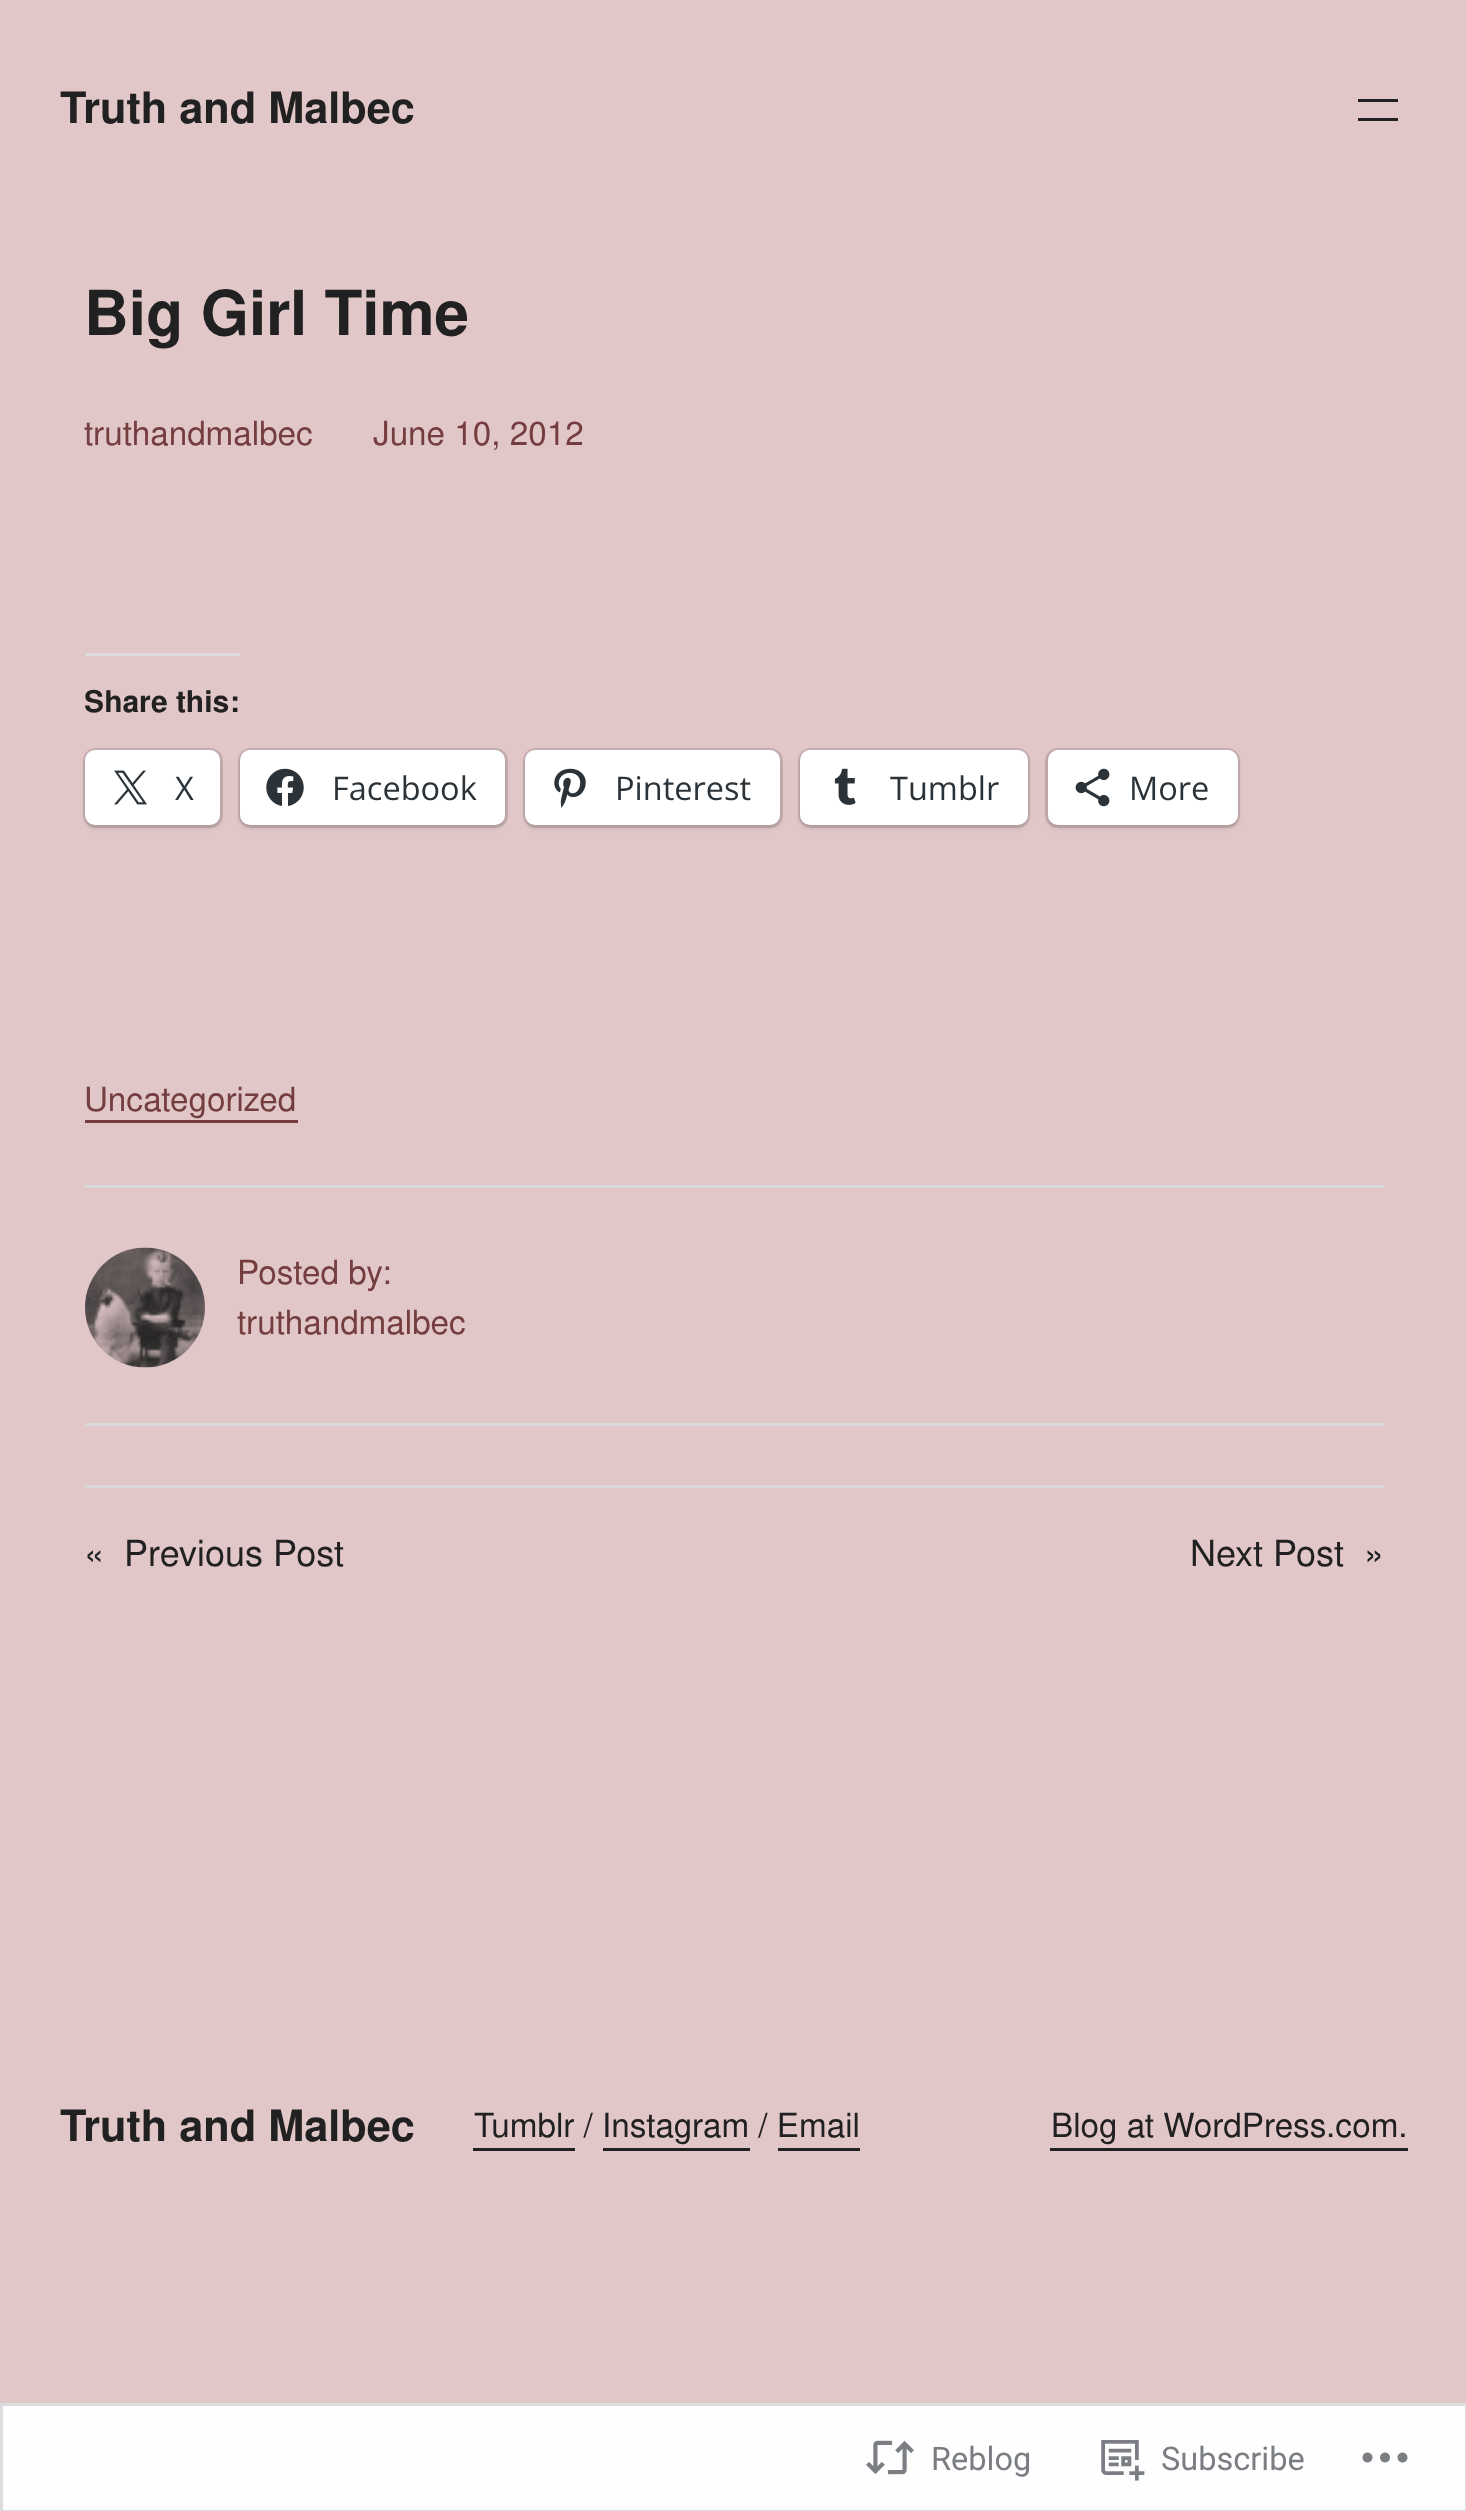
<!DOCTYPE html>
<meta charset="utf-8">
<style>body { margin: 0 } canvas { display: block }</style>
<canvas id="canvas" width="1466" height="2511"></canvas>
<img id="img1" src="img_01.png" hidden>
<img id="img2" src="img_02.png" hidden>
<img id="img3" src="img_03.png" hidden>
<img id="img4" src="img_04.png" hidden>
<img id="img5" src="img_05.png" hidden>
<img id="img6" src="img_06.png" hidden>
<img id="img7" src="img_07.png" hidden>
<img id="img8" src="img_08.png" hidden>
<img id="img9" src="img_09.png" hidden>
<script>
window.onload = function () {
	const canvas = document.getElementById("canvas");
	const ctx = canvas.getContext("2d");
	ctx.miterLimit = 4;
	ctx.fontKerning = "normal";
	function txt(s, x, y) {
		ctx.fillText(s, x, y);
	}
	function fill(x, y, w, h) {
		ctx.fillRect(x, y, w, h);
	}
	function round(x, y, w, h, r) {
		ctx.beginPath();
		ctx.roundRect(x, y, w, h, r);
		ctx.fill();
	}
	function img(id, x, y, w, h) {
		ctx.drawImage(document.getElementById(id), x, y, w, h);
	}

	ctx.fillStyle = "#E1C7C8";
	fill(0, 0, 1466, 2511);
	ctx.fillStyle = "#212121";
	fill(1358, 99, 40, 3);
	fill(1358, 118, 40, 3);
	ctx.fillStyle = "#DCDCDE";
	fill(85, 653, 155, 3);
	ctx.beginPath();
	ctx.roundRect(84.5, 749.5, 137, 77, 11.5);
	ctx.strokeStyle = "#C6AFB0";
	ctx.lineWidth = 3;
	ctx.stroke();
	ctx.fillStyle = "rgba(0, 0, 0, 0.12)";
	ctx.filter = "blur(2.5px)";
	ctx.beginPath();
	ctx.roundRect(85, 753, 135, 75, 10);
	ctx.fill();
	ctx.filter = "none";
	ctx.fillStyle = "#FFFFFF";
	round(85, 750, 135, 75, 10);
	img("img1", 114, 770, 33, 35);
	ctx.beginPath();
	ctx.roundRect(239.5, 749.5, 267, 77, 11.5);
	ctx.stroke();
	ctx.fillStyle = "rgba(0, 0, 0, 0.12)";
	ctx.filter = "blur(2.5px)";
	ctx.beginPath();
	ctx.roundRect(240, 753, 265, 75, 10);
	ctx.fill();
	ctx.filter = "none";
	ctx.fillStyle = "#FFFFFF";
	round(240, 750, 265, 75, 10);
	img("img2", 266, 768, 38, 38);
	ctx.beginPath();
	ctx.roundRect(524.5, 749.5, 257, 77, 11.5);
	ctx.stroke();
	ctx.fillStyle = "rgba(0, 0, 0, 0.12)";
	ctx.filter = "blur(2.5px)";
	ctx.beginPath();
	ctx.roundRect(525, 753, 255, 75, 10);
	ctx.fill();
	ctx.filter = "none";
	ctx.fillStyle = "#FFFFFF";
	round(525, 750, 255, 75, 10);
	img("img3", 554, 768, 32, 40);
	ctx.beginPath();
	ctx.roundRect(799.5, 749.5, 229, 77, 11.5);
	ctx.stroke();
	ctx.fillStyle = "rgba(0, 0, 0, 0.12)";
	ctx.filter = "blur(2.5px)";
	ctx.beginPath();
	ctx.roundRect(800, 753, 228, 75, 10);
	ctx.fill();
	ctx.filter = "none";
	ctx.fillStyle = "#FFFFFF";
	round(800, 750, 228, 75, 10);
	img("img4", 834, 768, 22, 37);
	ctx.beginPath();
	ctx.roundRect(1046.5, 749.5, 192, 77, 11.5);
	ctx.stroke();
	ctx.fillStyle = "rgba(0, 0, 0, 0.12)";
	ctx.filter = "blur(2.5px)";
	ctx.beginPath();
	ctx.roundRect(1048, 753, 190, 75, 10);
	ctx.fill();
	ctx.filter = "none";
	ctx.fillStyle = "#FFFFFF";
	round(1048, 750, 190, 75, 10);
	img("img5", 1075, 768, 35, 39);
	ctx.fillStyle = "#743D3F";
	fill(85, 1120, 213, 3);
	ctx.fillStyle = "#D9D9D9";
	fill(85, 1185, 1300, 3);
	img("img6", 85, 1247, 120, 121);
	fill(85, 1423, 1300, 3);
	fill(85, 1485, 1300, 3);
	ctx.fillStyle = "#212121";
	fill(473, 2148, 102, 3);
	fill(603, 2148, 147, 3);
	fill(778, 2148, 82, 3);
	fill(1050, 2148, 358, 3);
	ctx.fillStyle = "#FEFEFE";
	ctx.beginPath();
	ctx.rect(1.5, 2404.5, 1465, 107);
	ctx.fill();
	ctx.strokeStyle = "#DCDCDE";
	ctx.stroke();
	img("img7", 866, 2440, 48, 35);
	img("img8", 1101, 2440, 44, 41);
	img("img9", 1362, 2452, 46, 11);
	ctx.font = "bold 43.25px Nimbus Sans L";
	ctx.fillStyle = "#212121";
	txt("Truth and Malbec", 60, 123);
	ctx.font = "bold 62px Nimbus Sans L";
	txt("Big Girl Time", 84, 335);
	ctx.font = "33.25px Nimbus Sans L";
	ctx.fillStyle = "#743D3F";
	txt("truthandmalbec", 84, 445);
	txt("June 10, 2012", 373, 445);
	ctx.font = "bold 30px Nimbus Sans L";
	ctx.fillStyle = "#212121";
	txt("Share this:", 84, 712);
	ctx.font = "32.5px Open Sans";
	ctx.fillStyle = "#2C3338";
	txt("X", 175, 800);
	txt("Facebook", 332, 800);
	txt("Pinterest", 615, 800);
	txt("Tumblr", 890, 800);
	txt("More", 1129, 800);
	ctx.font = "33.25px Nimbus Sans L";
	ctx.fillStyle = "#743D3F";
	txt("Uncategorized", 84, 1111);
	txt("Posted by:", 237, 1284);
	txt("truthandmalbec", 237, 1334);
	ctx.font = "36px Nimbus Sans L";
	ctx.fillStyle = "#212121";
	txt("«", 84, 1566);
	txt("Previous Post", 124, 1566);
	txt("Next Post", 1190, 1566);
	txt("»", 1364, 1566);
	ctx.font = "bold 43.25px Nimbus Sans L";
	txt("Truth and Malbec", 60, 2141);
	ctx.font = "33.25px Nimbus Sans L";
	txt("Tumblr / Instagram / Email", 474, 2137);
	txt("Blog at WordPress.com.", 1051, 2137);
	ctx.font = "32.5px Roboto";
	ctx.fillStyle = "#7A7E83";
	txt("Reblog", 931, 2470);
	txt("Subscribe", 1161, 2470);
};
</script>
